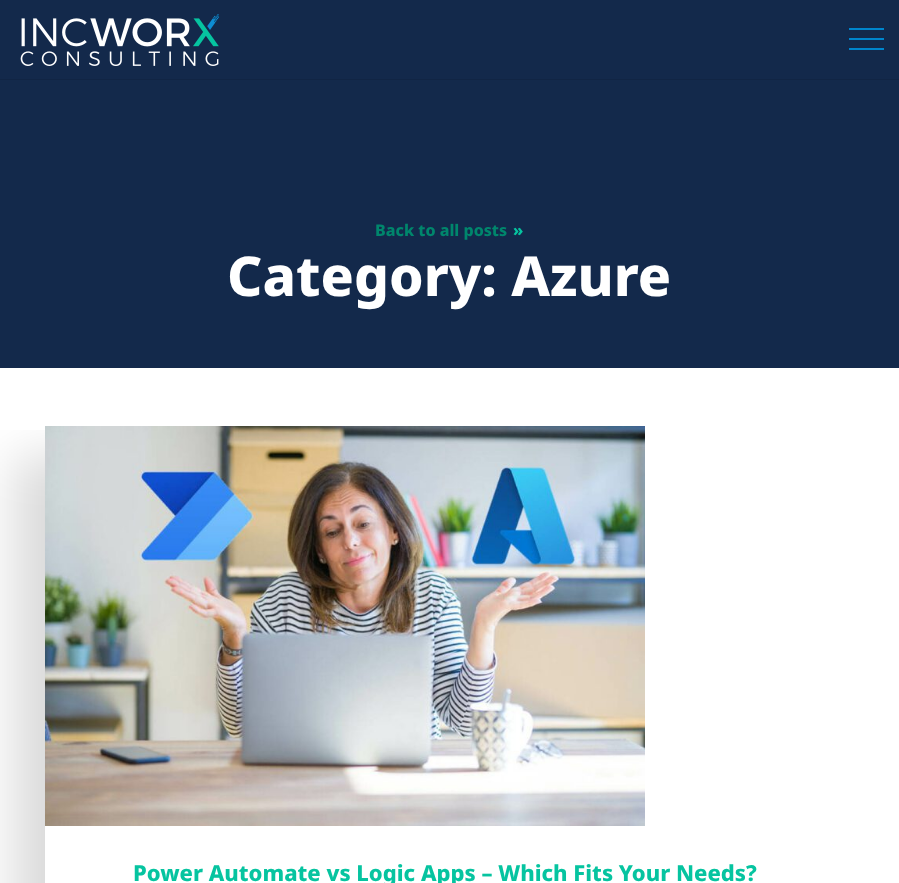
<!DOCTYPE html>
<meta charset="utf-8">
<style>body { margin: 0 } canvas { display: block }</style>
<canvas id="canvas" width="899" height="883"></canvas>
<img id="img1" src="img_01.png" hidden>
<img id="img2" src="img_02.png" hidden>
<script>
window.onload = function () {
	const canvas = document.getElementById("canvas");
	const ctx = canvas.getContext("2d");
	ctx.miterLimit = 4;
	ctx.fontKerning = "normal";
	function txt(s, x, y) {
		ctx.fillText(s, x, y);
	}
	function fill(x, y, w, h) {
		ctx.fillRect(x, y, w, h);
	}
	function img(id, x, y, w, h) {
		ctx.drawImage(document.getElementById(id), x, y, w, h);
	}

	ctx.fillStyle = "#FFFFFF";
	fill(0, 0, 899, 883);
	ctx.fillStyle = "#112544";
	fill(0, 79, 899, 1);
	ctx.fillStyle = "#13294B";
	fill(0, 0, 899, 79);
	img("img1", 20, 14, 200, 52);
	ctx.fillStyle = "#0085CC";
	fill(849, 28, 35, 2);
	fill(849, 38, 35, 2);
	fill(849, 48, 35, 2);
	ctx.fillStyle = "#13294B";
	fill(0, 80, 899, 288);
	ctx.save();
	ctx.beginPath();
	ctx.rect(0, 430, 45, 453);
	ctx.clip();
	ctx.fillStyle = "rgba(0, 0, 0, 0.15)";
	ctx.filter = "blur(25px)";
	ctx.beginPath();
	ctx.rect(15, 456, 799, 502);
	ctx.fill();
	ctx.filter = "none";
	ctx.restore();
	img("img2", 45, 426, 600, 400);
	ctx.font = "800 16px Noto Sans";
	ctx.fillStyle = "#00866C";
	txt("Back to all posts", 375, 236);
	ctx.fillStyle = "#06C4A0";
	txt("»", 513, 236);
	ctx.font = "800 55px Noto Sans";
	ctx.fillStyle = "#FFFFFF";
	txt("Category: Azure", 227, 296);
	ctx.font = "800 22px Noto Sans";
	ctx.fillStyle = "#06C4A0";
	txt("Power Automate vs Logic Apps – Which Fits Your Needs?", 133, 881);
};
</script>
